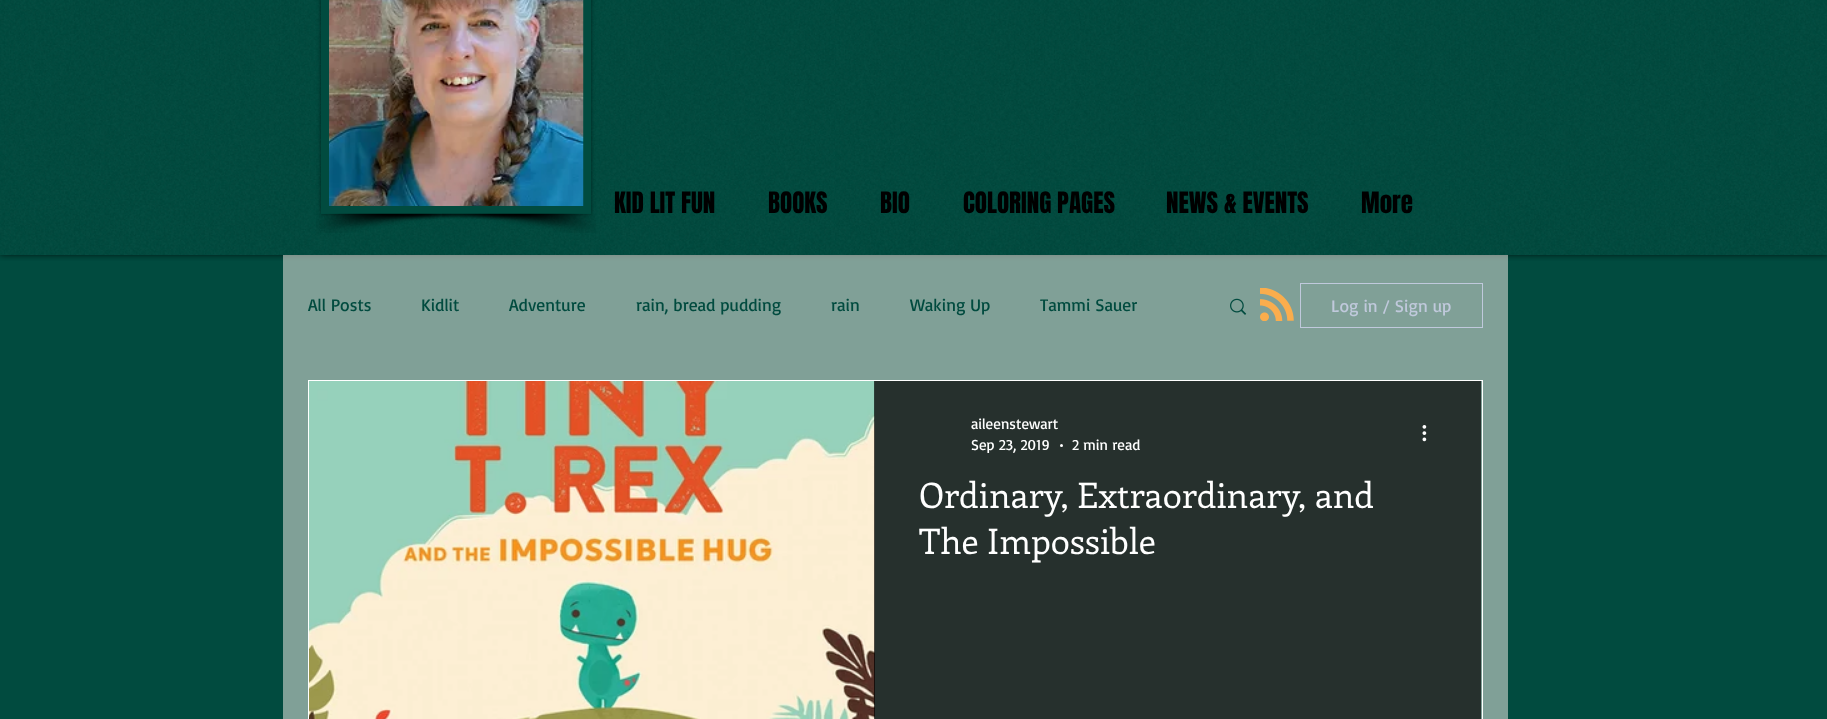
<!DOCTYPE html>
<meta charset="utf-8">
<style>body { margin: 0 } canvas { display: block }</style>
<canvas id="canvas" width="1827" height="719"></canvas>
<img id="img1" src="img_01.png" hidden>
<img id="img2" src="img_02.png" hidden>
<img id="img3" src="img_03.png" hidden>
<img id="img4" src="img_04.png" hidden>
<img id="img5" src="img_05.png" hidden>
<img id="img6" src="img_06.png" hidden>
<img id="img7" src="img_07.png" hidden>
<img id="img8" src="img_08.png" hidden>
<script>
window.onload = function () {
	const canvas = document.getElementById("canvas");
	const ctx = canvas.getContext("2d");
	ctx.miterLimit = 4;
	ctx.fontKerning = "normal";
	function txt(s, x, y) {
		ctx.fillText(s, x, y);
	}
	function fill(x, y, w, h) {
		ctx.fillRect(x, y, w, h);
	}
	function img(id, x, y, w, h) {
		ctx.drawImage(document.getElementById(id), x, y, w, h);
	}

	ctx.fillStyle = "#014B3F";
	fill(0, 0, 1827, 719);
	ctx.save();
	ctx.beginPath();
	ctx.rect(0, 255, 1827, 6);
	ctx.clip();
	ctx.fillStyle = "rgba(0, 0, 0, 0.7)";
	ctx.filter = "blur(3px)";
	ctx.beginPath();
	ctx.rect(0, -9, 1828, 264);
	ctx.fill();
	ctx.filter = "none";
	ctx.restore();
	img("img1", 0, 0, 1827, 255);
	ctx.fillStyle = "rgba(0, 0, 0, 0.5)";
	ctx.filter = "blur(2px)";
	ctx.beginPath();
	ctx.rect(321, -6, 270, 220);
	ctx.fill();
	ctx.filter = "none";
	ctx.fillStyle = "#014B3F";
	fill(321, 0, 270, 214);
	img("img2", 329, 0, 255, 206);
	img("img3", 316, 213, 165, 20);
	img("img4", 442, 213, 154, 20);
	ctx.fillStyle = "rgba(255, 246, 239, 0.5)";
	fill(283, 255, 1225, 464);
	img("img5", 1260, 288, 34, 33);
	img("img6", 1230, 298, 17, 17);
	ctx.strokeStyle = "#C0C9DC";
	ctx.strokeRect(1300.5, 283.5, 182, 44);
	ctx.strokeStyle = "#FFFFFF";
	ctx.strokeRect(308.5, 380.5, 1174, 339);
	img("img7", 309, 381, 566, 338);
	ctx.fillStyle = "rgba(0, 0, 0, 0.7)";
	fill(874, 381, 607, 338);
	ctx.fillStyle = "#FFFFFF";
	ctx.beginPath();
	ctx.arc(1061.5, 445.5, 1.5, 0, Math.PI * 2);
	ctx.fill();
	img("img8", 1422, 425, 5, 17);
	ctx.font = "25px Anton";
	ctx.fillStyle = "#000000";
	txt("KID LIT FUN", 614, 213);
	txt("BOOKS", 768, 213);
	txt("BIO", 880, 213);
	txt("COLORING PAGES", 963, 213);
	txt("NEWS & EVENTS", 1166, 213);
	txt("More", 1361, 213);
	ctx.font = "17.5px Basic";
	ctx.fillStyle = "#014B3F";
	txt("All Posts", 308, 311);
	txt("Kidlit", 421, 311);
	txt("Adventure", 509, 311);
	txt("rain, bread pudding", 636, 311);
	txt("rain", 831, 311);
	txt("Waking Up", 910, 311);
	txt("Tammi Sauer", 1040, 311);
	ctx.fillStyle = "#C0C9DC";
	txt("Log in / Sign up", 1331, 312);
	ctx.font = "15px Basic";
	ctx.fillStyle = "#FFFFFF";
	txt("aileenstewart", 971, 429);
	txt("Sep 23, 2019", 971, 450);
	txt("2 min read", 1072, 450);
	ctx.font = "35px Enriqueta";
	txt("Ordinary, Extraordinary, and", 919, 508);
	txt("The Impossible", 919, 554);
};
</script>
